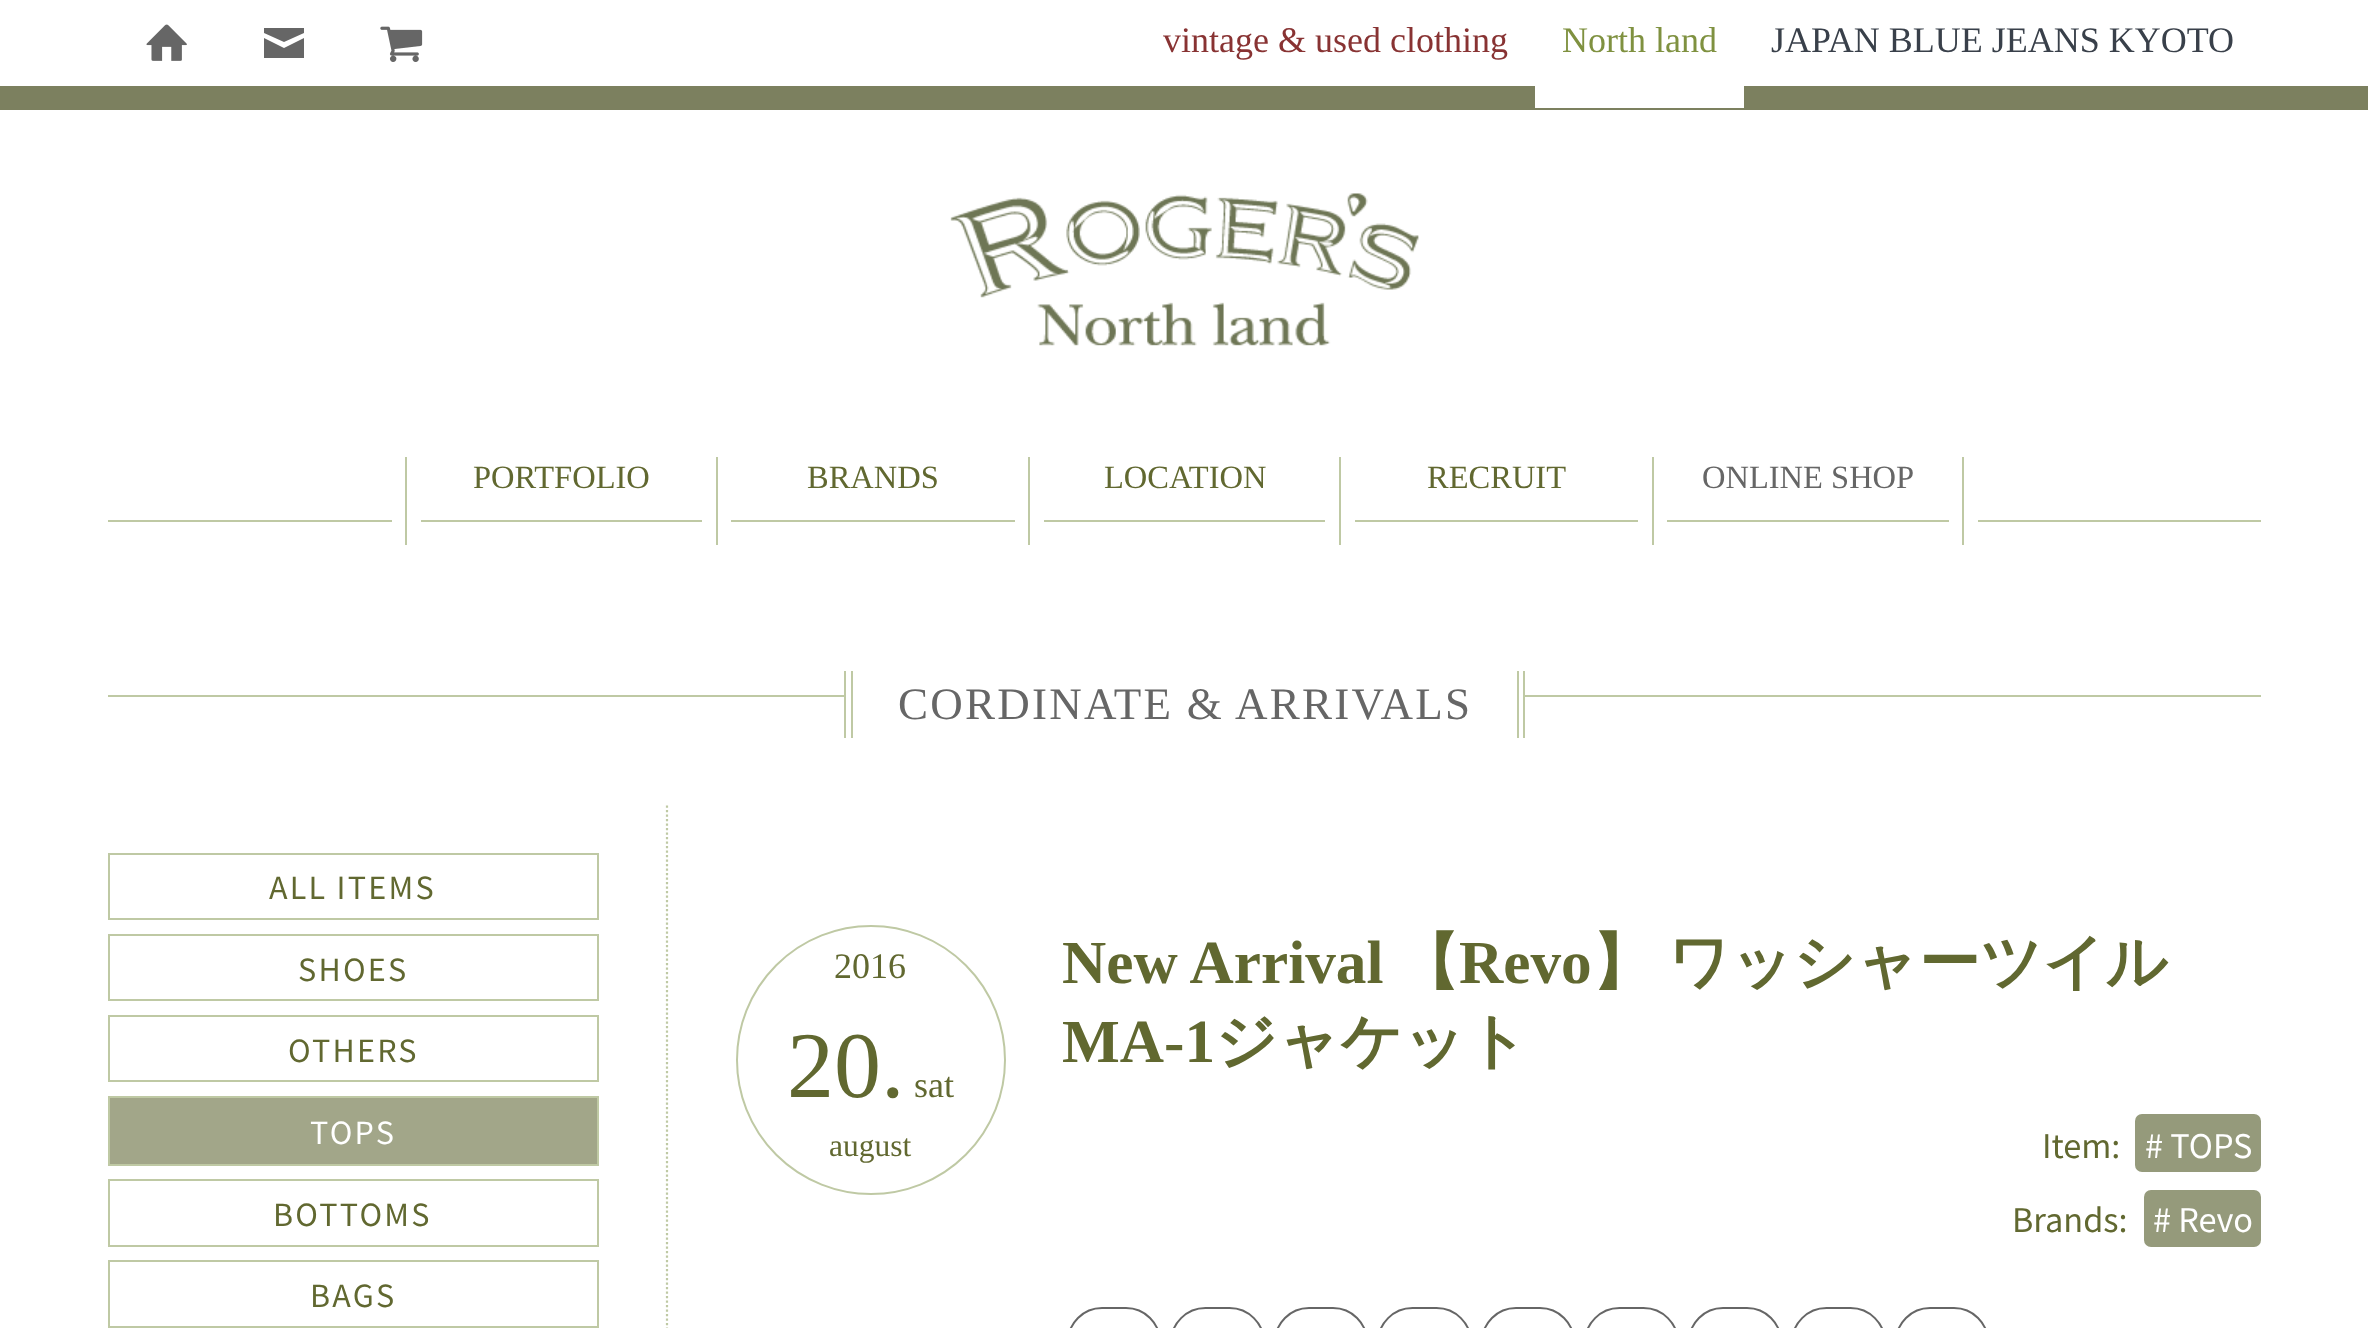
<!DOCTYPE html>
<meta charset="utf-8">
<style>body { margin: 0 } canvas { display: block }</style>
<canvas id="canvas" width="2368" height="1328"></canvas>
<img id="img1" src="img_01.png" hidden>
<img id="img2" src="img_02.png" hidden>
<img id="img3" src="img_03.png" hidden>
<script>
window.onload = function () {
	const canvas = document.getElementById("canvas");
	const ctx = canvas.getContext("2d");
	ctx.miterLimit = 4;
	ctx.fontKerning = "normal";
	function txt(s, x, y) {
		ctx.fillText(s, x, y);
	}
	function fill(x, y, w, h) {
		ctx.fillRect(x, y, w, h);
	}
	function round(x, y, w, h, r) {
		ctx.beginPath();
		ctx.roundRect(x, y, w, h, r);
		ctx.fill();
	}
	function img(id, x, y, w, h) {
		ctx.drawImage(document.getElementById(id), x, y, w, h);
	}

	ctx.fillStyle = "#FFFFFF";
	fill(0, 0, 2368, 1328);
	ctx.fillStyle = "#7C805F";
	fill(0, 86, 2368, 24);
	img("img1", 146, 24, 41, 37);
	ctx.fillStyle = "#666666";
	ctx.beginPath();
	ctx.moveTo(284, 42);
	ctx.lineTo(264, 33);
	ctx.lineTo(264, 28);
	ctx.lineTo(304, 28);
	ctx.lineTo(304, 33);
	ctx.closePath();
	ctx.moveTo(284, 48);
	ctx.lineTo(304, 38);
	ctx.lineTo(304, 58);
	ctx.lineTo(264, 58);
	ctx.lineTo(264, 38);
	ctx.closePath();
	ctx.fill();
	img("img2", 380, 26, 43, 36);
	ctx.fillStyle = "#FFFFFF";
	fill(1535, 86, 209, 22);
	img("img3", 950, 193, 469, 153);
	ctx.fillStyle = "#BFC9A4";
	fill(405, 457, 2, 88);
	fill(421, 520, 281, 2);
	fill(716, 457, 2, 88);
	fill(731, 520, 284, 2);
	fill(1028, 457, 2, 88);
	fill(1044, 520, 281, 2);
	fill(1339, 457, 2, 88);
	fill(1355, 520, 283, 2);
	fill(1652, 457, 2, 88);
	fill(1667, 520, 282, 2);
	fill(1962, 457, 2, 88);
	fill(108, 520, 284, 2);
	fill(1978, 520, 283, 2);
	fill(108, 695, 2153, 2);
	ctx.fillStyle = "#FFFFFF";
	fill(846, 695, 677, 2);
	ctx.fillStyle = "#BFC9A4";
	fill(1523, 671, 2, 67);
	fill(844, 671, 2, 67);
	fill(851, 671, 2, 67);
	fill(1517, 671, 2, 67);
	ctx.beginPath();
	ctx.moveTo(667, 805.5);
	ctx.lineTo(667, 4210);
	ctx.strokeStyle = "#BFC9A4";
	ctx.lineWidth = 2.2;
	ctx.setLineDash([2.25, 2.25]);
	ctx.stroke();
	ctx.lineWidth = 2;
	ctx.setLineDash([]);
	ctx.strokeRect(109, 854, 489, 65);
	ctx.strokeRect(109, 935, 489, 65);
	ctx.strokeRect(109, 1016, 489, 65);
	ctx.fillStyle = "#A2A689";
	ctx.beginPath();
	ctx.rect(109, 1097, 489, 68);
	ctx.fill();
	ctx.stroke();
	ctx.strokeRect(109, 1180, 489, 66);
	ctx.strokeRect(109, 1261, 489, 66);
	ctx.beginPath();
	ctx.arc(871, 1060, 134, 0, Math.PI * 2);
	ctx.stroke();
	ctx.fillStyle = "#959A7B";
	round(2135, 1114, 126, 58, 7);
	round(2144, 1190, 117, 57, 7);
	ctx.beginPath();
	ctx.roundRect(1068, 1308, 92, 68, 46);
	ctx.strokeStyle = "#666666";
	ctx.stroke();
	ctx.beginPath();
	ctx.roundRect(1171, 1308, 93, 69, 46.5);
	ctx.stroke();
	ctx.beginPath();
	ctx.roundRect(1275, 1308, 92, 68, 46);
	ctx.stroke();
	ctx.beginPath();
	ctx.roundRect(1378, 1308, 93, 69, 46.5);
	ctx.stroke();
	ctx.beginPath();
	ctx.roundRect(1482, 1308, 92, 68, 46);
	ctx.stroke();
	ctx.beginPath();
	ctx.roundRect(1585, 1308, 93, 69, 46.5);
	ctx.stroke();
	ctx.beginPath();
	ctx.roundRect(1689, 1308, 92, 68, 46);
	ctx.stroke();
	ctx.beginPath();
	ctx.roundRect(1792, 1308, 93, 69, 46.5);
	ctx.stroke();
	ctx.beginPath();
	ctx.roundRect(1896, 1308, 92, 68, 46);
	ctx.stroke();
	ctx.font = "36px Liberation Serif";
	ctx.fillStyle = "#883333";
	txt("vintage & used clothing", 1163, 52);
	ctx.fillStyle = "#7F9140";
	txt("North land", 1562, 52);
	ctx.fillStyle = "#39404A";
	txt("JAPAN BLUE JEANS KYOTO", 1771, 52);
	ctx.font = "32.5px Liberation Serif";
	ctx.fillStyle = "#616830";
	txt("PORTFOLIO", 473, 488);
	txt("BRANDS", 807, 488);
	txt("LOCATION", 1104, 488);
	txt("RECRUIT", 1427, 488);
	ctx.fillStyle = "#666666";
	txt("ONLINE SHOP", 1702, 488);
	ctx.letterSpacing = "2.25px";
	ctx.font = "45px Liberation Serif";
	txt("CORDINATE & ARRIVALS", 898, 719);
	ctx.font = "30.5px Noto Sans JP";
	ctx.fillStyle = "#616830";
	txt("ALL ITEMS", 269, 899);
	txt("SHOES", 298, 981);
	txt("OTHERS", 288, 1062);
	ctx.fillStyle = "#FFFFFF";
	txt("TOPS", 310, 1144);
	ctx.fillStyle = "#616830";
	txt("BOTTOMS", 273, 1226);
	txt("BAGS", 310, 1307);
	ctx.letterSpacing = "0px";
	ctx.font = "36px Liberation Serif";
	txt("2016", 834, 978);
	ctx.font = "94px Liberation Serif";
	txt("20.", 787, 1097);
	ctx.font = "36px Liberation Serif";
	txt("sat", 914, 1097);
	ctx.font = "31.5px Liberation Serif";
	txt("august", 829, 1156);
	ctx.font = "bold 61.25px Liberation Serif";
	txt("New Arrival", 1062, 983);
	ctx.font = "bold 61.25px WenQuanYi Zen Hei";
	txt("【", 1398, 983);
	ctx.font = "bold 61.25px Liberation Serif";
	txt("Revo", 1459, 983);
	ctx.font = "bold 61.25px WenQuanYi Zen Hei";
	txt("】", 1592, 983);
	txt("ワッシャーツイル", 1668, 983);
	ctx.font = "bold 61.25px Liberation Serif";
	txt("MA-1", 1062, 1062);
	ctx.font = "bold 61.25px WenQuanYi Zen Hei";
	txt("ジャケット", 1215, 1062);
	ctx.font = "32.5px Noto Sans JP";
	txt("Item:", 2042, 1158);
	ctx.fillStyle = "#FFFFFF";
	txt("# TOPS", 2145, 1158);
	ctx.fillStyle = "#616830";
	txt("Brands:", 2012, 1232);
	ctx.fillStyle = "#FFFFFF";
	txt("# Revo", 2153, 1232);
};
</script>
